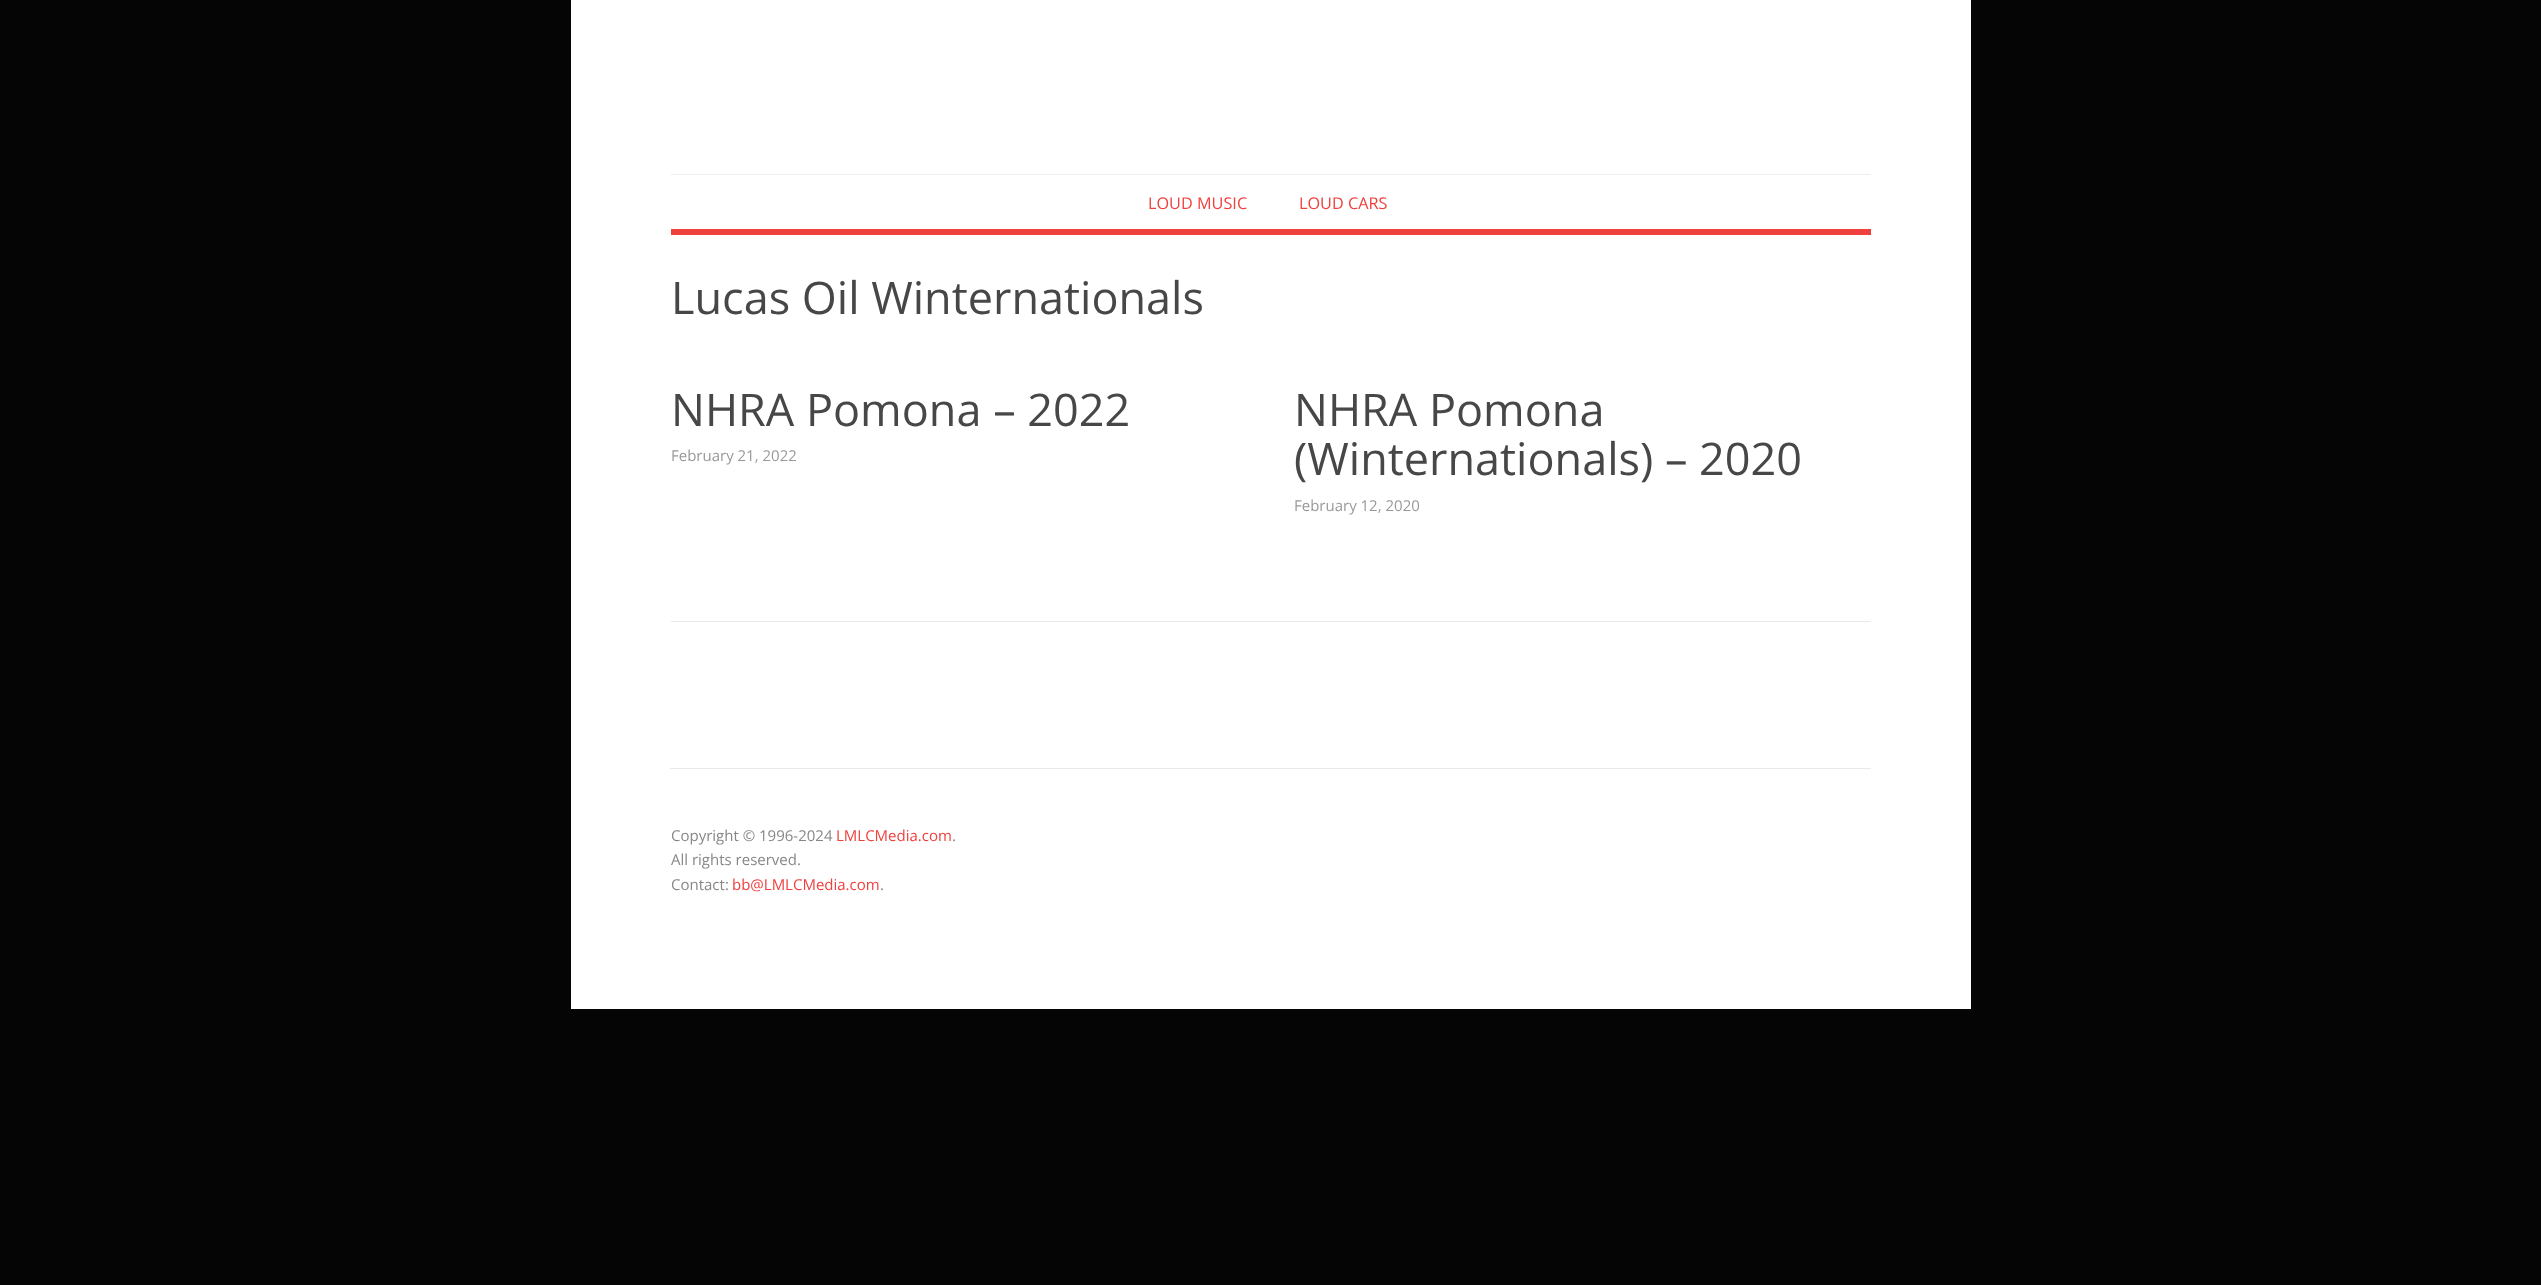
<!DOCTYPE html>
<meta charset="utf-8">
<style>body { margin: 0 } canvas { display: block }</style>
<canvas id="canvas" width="2541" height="1285"></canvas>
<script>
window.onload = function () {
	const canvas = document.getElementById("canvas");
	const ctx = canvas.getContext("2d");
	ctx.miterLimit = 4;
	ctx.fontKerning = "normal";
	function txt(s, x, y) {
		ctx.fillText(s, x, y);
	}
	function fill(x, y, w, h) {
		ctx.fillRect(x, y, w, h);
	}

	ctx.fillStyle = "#050505";
	fill(0, 0, 2541, 1285);
	ctx.fillStyle = "#FFFFFF";
	fill(571, 0, 1400, 1009);
	ctx.fillStyle = "#EFEFEF";
	fill(671, 174, 1200, 1);
	ctx.fillStyle = "#EE403D";
	fill(671, 229, 1200, 6);
	ctx.fillStyle = "#E9E9E9";
	fill(671, 621, 1200, 1);
	fill(670, 768, 1201, 1);
	ctx.font = "16.25px Open Sans";
	ctx.fillStyle = "#EE403D";
	txt("LOUD MUSIC", 1148, 209);
	txt("LOUD CARS", 1299, 209);
	ctx.font = "45px Open Sans";
	ctx.fillStyle = "#474747";
	txt("Lucas Oil Winternationals", 671, 314);
	txt("NHRA Pomona – 2022", 671, 426);
	ctx.font = "15px Open Sans";
	ctx.fillStyle = "#999999";
	txt("February 21, 2022", 671, 461);
	ctx.font = "45px Open Sans";
	ctx.fillStyle = "#474747";
	txt("NHRA Pomona", 1294, 426);
	txt("(Winternationals) – 2020", 1294, 475);
	ctx.font = "15px Open Sans";
	ctx.fillStyle = "#999999";
	txt("February 12, 2020", 1294, 511);
	ctx.fillStyle = "#878787";
	txt("Copyright © 1996-2024", 671, 841);
	ctx.fillStyle = "#EE403D";
	txt("LMLCMedia.com", 836, 841);
	ctx.fillStyle = "#878787";
	txt(".", 952, 841);
	txt("All rights reserved.", 671, 865);
	txt("Contact:", 671, 890);
	ctx.fillStyle = "#EE403D";
	txt("bb@LMLCMedia.com", 732, 890);
	ctx.fillStyle = "#878787";
	txt(".", 880, 890);
};
</script>
